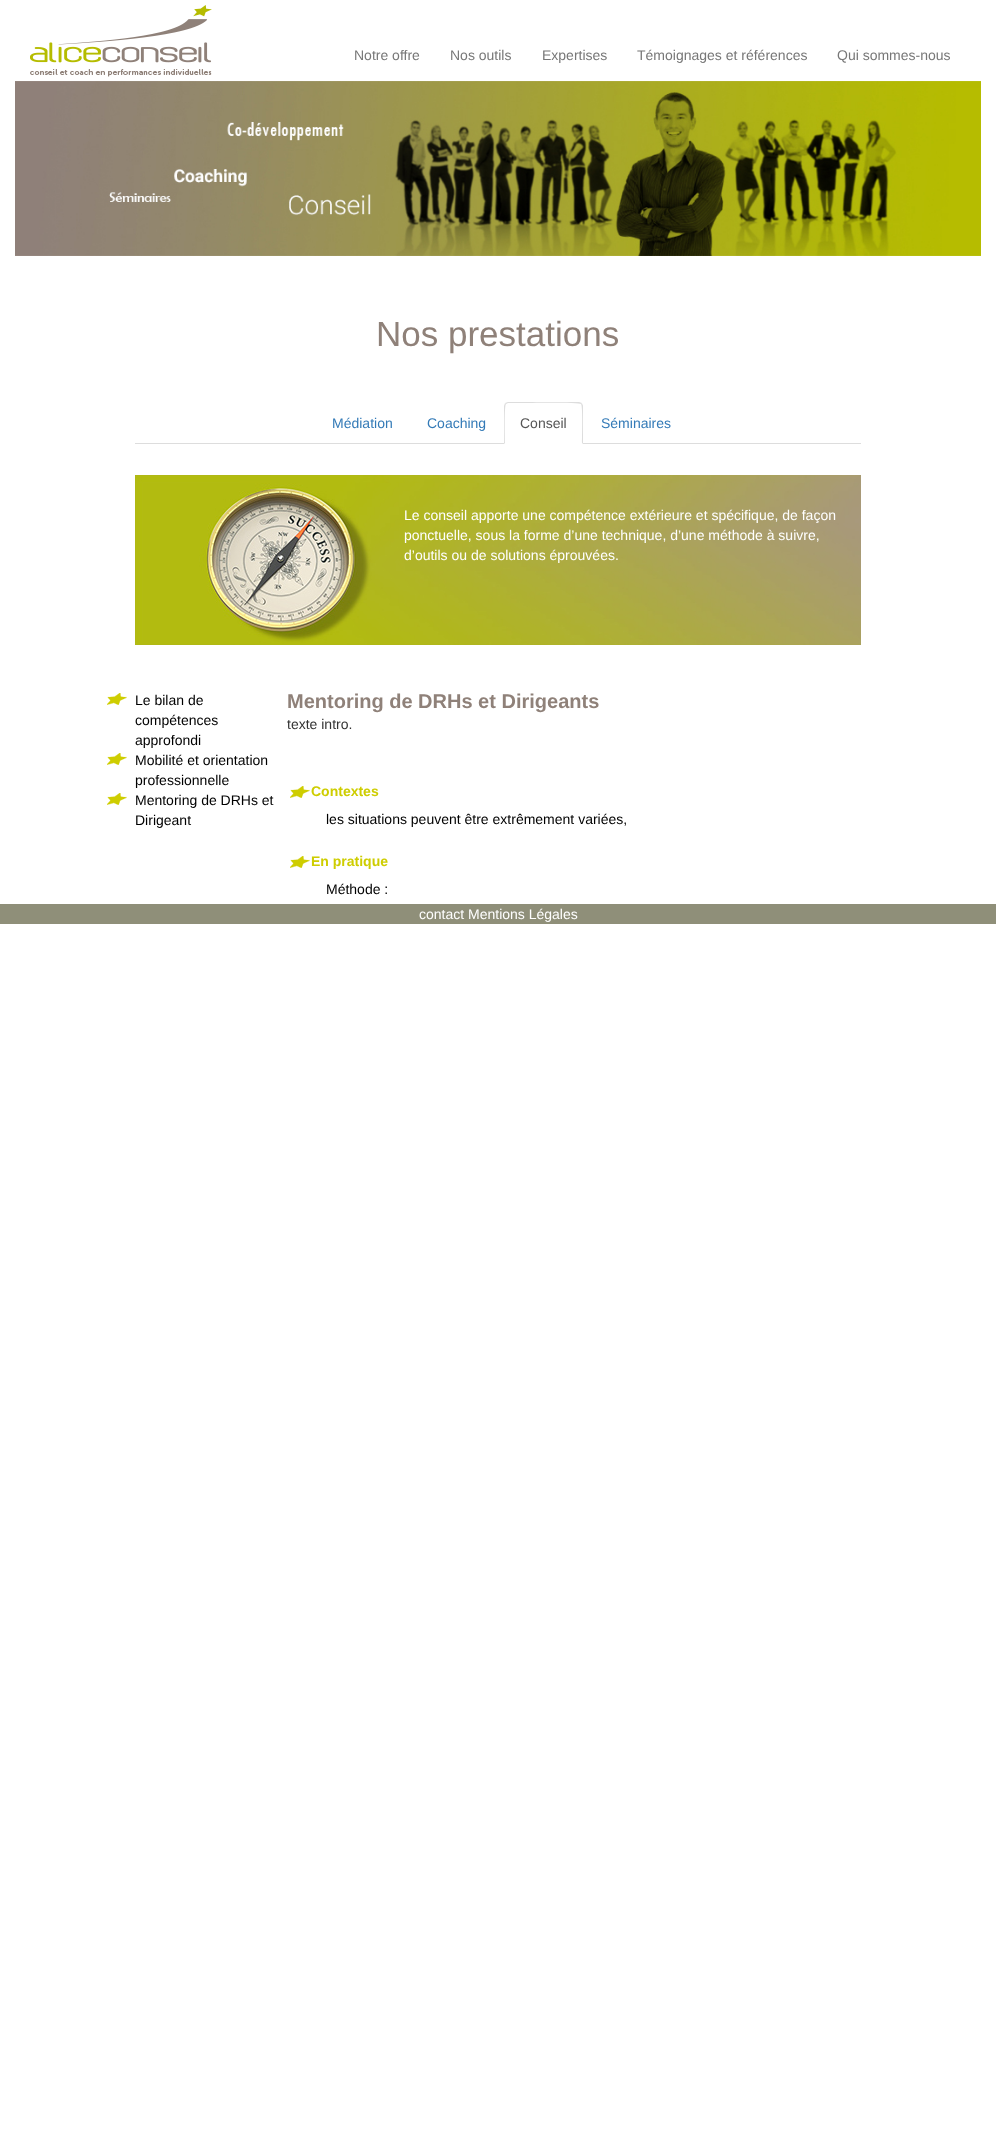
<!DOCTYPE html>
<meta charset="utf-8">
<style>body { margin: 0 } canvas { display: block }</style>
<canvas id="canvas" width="996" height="2133"></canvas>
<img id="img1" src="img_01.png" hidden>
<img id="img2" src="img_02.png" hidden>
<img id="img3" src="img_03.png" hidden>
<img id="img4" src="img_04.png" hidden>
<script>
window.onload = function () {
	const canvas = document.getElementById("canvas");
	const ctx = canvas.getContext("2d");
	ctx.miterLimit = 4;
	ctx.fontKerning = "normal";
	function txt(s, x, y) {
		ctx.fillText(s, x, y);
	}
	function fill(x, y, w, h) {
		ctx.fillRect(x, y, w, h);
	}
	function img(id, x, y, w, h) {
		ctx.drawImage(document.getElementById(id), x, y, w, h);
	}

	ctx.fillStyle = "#FFFFFF";
	fill(0, 0, 996, 2133);
	img("img1", 30, 5, 182, 72);
	img("img2", 15, 81, 966, 175);
	ctx.fillStyle = "#DDDDDD";
	fill(135, 443, 726, 1);
	ctx.fillStyle = "#FFFFFF";
	ctx.beginPath();
	ctx.roundRect(504, 402, 79, 42, [4, 4, 0, 0]);
	ctx.fill();
	ctx.fillStyle = "#DDDDDD";
	ctx.beginPath();
	ctx.moveTo(508, 402);
	ctx.lineTo(505, 403);
	ctx.lineTo(506, 404);
	ctx.lineTo(508, 403);
	ctx.lineTo(520, 403);
	ctx.bezierCurveTo(527, 403, 579, 402, 581, 404);
	ctx.lineTo(582, 403);
	ctx.lineTo(579, 402);
	ctx.closePath();
	ctx.fill();
	ctx.beginPath();
	ctx.moveTo(583, 444);
	ctx.lineTo(583, 406);
	ctx.bezierCurveTo(583, 405, 582, 404, 582, 403);
	ctx.lineTo(581, 404);
	ctx.bezierCurveTo(583, 406, 582, 438, 582, 443);
	ctx.closePath();
	ctx.fill();
	ctx.beginPath();
	ctx.moveTo(504, 444);
	ctx.lineTo(505, 443);
	ctx.bezierCurveTo(505, 438, 504, 406, 506, 404);
	ctx.lineTo(505, 403);
	ctx.lineTo(504, 406);
	ctx.closePath();
	ctx.fill();
	img("img3", 135, 475, 726, 170);
	img("img4", 107, 693, 20, 12);
	img("img4", 107, 753, 20, 12);
	img("img4", 107, 793, 20, 12);
	img("img4", 290, 786, 20, 12);
	img("img4", 290, 856, 20, 12);
	ctx.fillStyle = "#8F8F79";
	fill(0, 904, 996, 20);
	ctx.font = "14px Liberation Sans";
	ctx.fillStyle = "#777777";
	txt("Notre offre", 354, 60);
	txt("Nos outils", 450, 60);
	txt("Expertises", 542, 60);
	txt("Témoignages et références", 637, 60);
	txt("Qui sommes-nous", 837, 60);
	ctx.font = "35px Liberation Sans";
	ctx.fillStyle = "#8F8179";
	txt("Nos prestations", 376, 346);
	ctx.font = "14px Liberation Sans";
	ctx.fillStyle = "#337AB7";
	txt("Médiation", 332, 428);
	txt("Coaching", 427, 428);
	ctx.fillStyle = "#555555";
	txt("Conseil", 520, 428);
	ctx.fillStyle = "#337AB7";
	txt("Séminaires", 601, 428);
	ctx.fillStyle = "#FFFFFF";
	txt("Le conseil apporte une compétence extérieure et spécifique, de façon", 404, 520);
	txt("ponctuelle, sous la forme d’une technique, d’une méthode à suivre,", 404, 540);
	txt("d’outils ou de solutions éprouvées.", 404, 560);
	ctx.fillStyle = "#000000";
	txt("Le bilan de", 135, 705);
	txt("compétences", 135, 725);
	txt("approfondi", 135, 745);
	txt("Mobilité et orientation", 135, 765);
	txt("professionnelle", 135, 785);
	txt("Mentoring de DRHs et", 135, 805);
	txt("Dirigeant", 135, 825);
	ctx.font = "bold 20px Liberation Sans";
	ctx.fillStyle = "#8F8179";
	txt("Mentoring de DRHs et Dirigeants", 287, 708);
	ctx.font = "14px Liberation Sans";
	ctx.fillStyle = "#333333";
	txt("texte intro.", 287, 729);
	ctx.font = "bold 14px Liberation Sans";
	ctx.fillStyle = "#CECD00";
	txt("Contextes", 311, 796);
	ctx.font = "14px Liberation Sans";
	ctx.fillStyle = "#000000";
	txt("les situations peuvent être extrêmement variées,", 326, 824);
	ctx.font = "bold 14px Liberation Sans";
	ctx.fillStyle = "#CECD00";
	txt("En pratique", 311, 866);
	ctx.font = "14px Liberation Sans";
	ctx.fillStyle = "#000000";
	txt("Méthode :", 326, 894);
	ctx.fillStyle = "#FFFFFF";
	txt("contact Mentions Légales", 419, 919);
};
</script>
